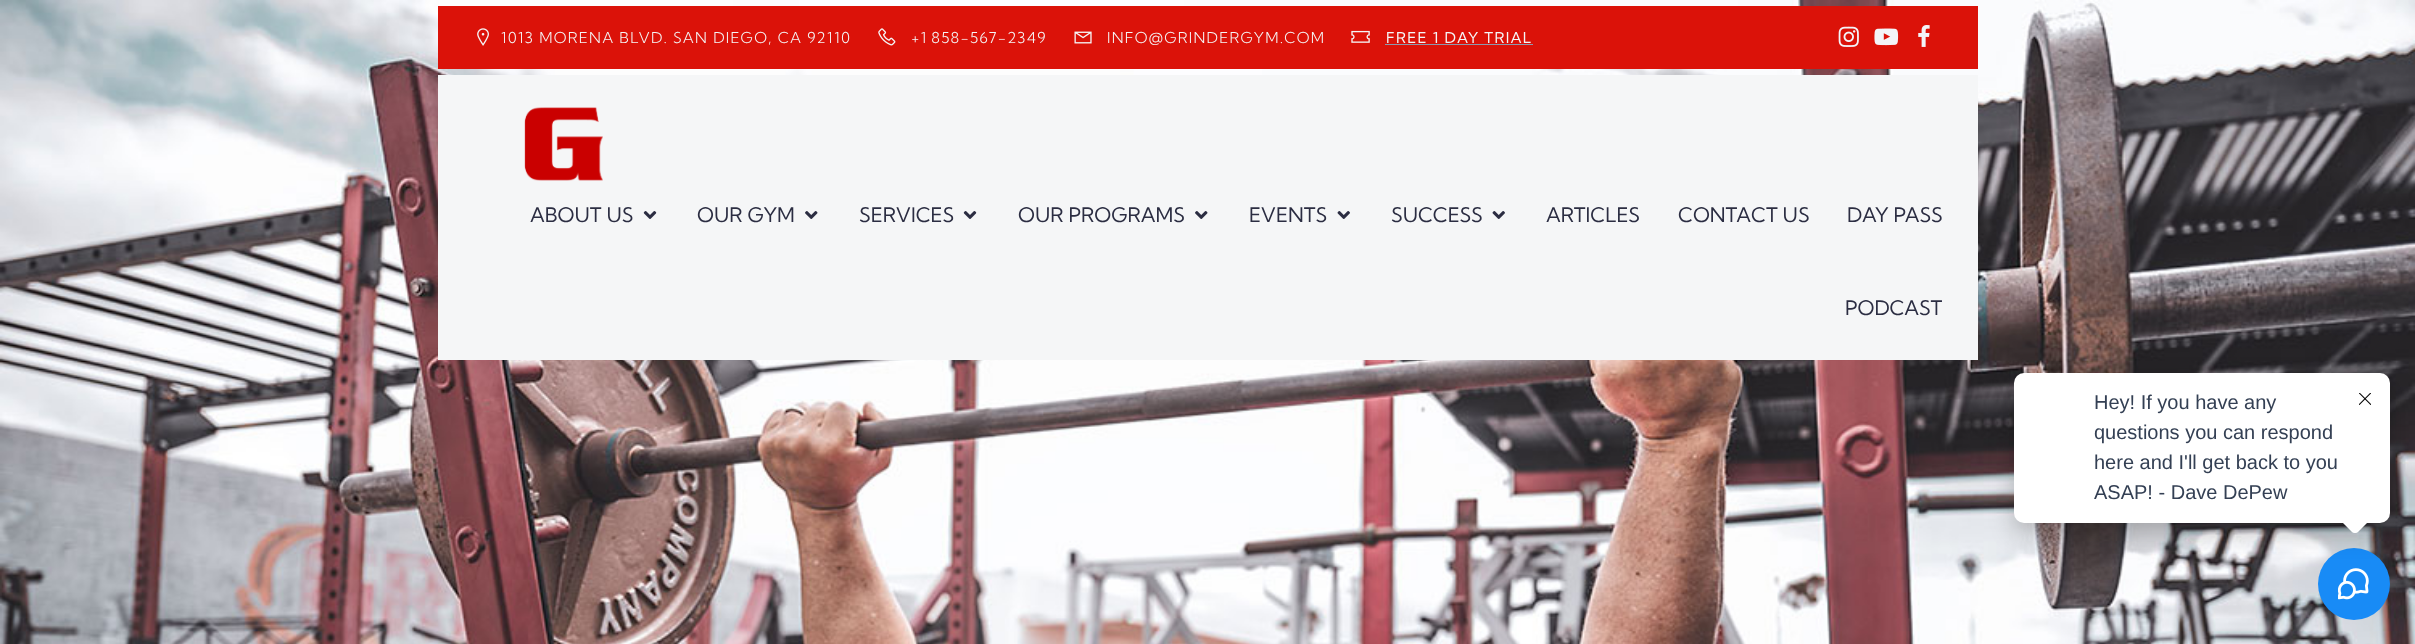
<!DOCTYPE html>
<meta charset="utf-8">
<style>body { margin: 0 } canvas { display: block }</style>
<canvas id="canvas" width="2415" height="644"></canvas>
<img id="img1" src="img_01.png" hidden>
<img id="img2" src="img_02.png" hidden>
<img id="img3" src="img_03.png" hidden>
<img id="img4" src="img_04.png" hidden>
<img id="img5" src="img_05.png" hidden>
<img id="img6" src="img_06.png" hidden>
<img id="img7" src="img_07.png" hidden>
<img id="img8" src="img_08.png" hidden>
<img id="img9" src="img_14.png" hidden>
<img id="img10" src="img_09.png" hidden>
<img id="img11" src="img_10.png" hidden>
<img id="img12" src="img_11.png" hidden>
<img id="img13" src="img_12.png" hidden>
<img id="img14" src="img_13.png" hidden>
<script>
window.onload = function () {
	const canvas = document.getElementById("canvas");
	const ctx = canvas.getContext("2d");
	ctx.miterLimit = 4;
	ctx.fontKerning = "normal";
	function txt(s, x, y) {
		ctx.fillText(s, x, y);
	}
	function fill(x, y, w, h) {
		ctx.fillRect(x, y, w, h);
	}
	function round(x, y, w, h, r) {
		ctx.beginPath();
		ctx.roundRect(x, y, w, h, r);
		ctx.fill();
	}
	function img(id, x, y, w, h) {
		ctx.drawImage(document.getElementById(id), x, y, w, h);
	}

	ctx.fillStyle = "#FFFFFF";
	fill(0, 0, 2415, 644);
	img("img1", 0, 0, 2415, 644);
	ctx.fillStyle = "#DB1209";
	fill(438, 6, 1540, 63);
	img("img2", 477, 28, 12, 18);
	img("img3", 878, 28, 18, 18);
	img("img4", 1074, 31, 18, 13);
	img("img5", 1351, 30, 19, 13);
	ctx.fillStyle = "#8D99AE";
	fill(1385, 44, 148, 1);
	img("img6", 1838, 26, 21, 21);
	img("img7", 1874, 28, 25, 18);
	img("img8", 1918, 25, 12, 22);
	ctx.fillStyle = "#188BF6";
	ctx.beginPath();
	ctx.arc(2354, 584, 36, 0, Math.PI * 2);
	ctx.fill();
	img("img9", 2338, 568, 31, 32);
	ctx.fillStyle = "rgba(0, 0, 0, 0.24)";
	ctx.filter = "blur(12.5px)";
	ctx.beginPath();
	ctx.roundRect(2014, 383, 376, 150, 10);
	ctx.fill();
	ctx.filter = "none";
	ctx.fillStyle = "#F5F6F7";
	fill(438, 75, 1540, 285);
	img("img10", 524, 107, 79, 74);
	img("img11", 643, 211, 14, 8);
	img("img12", 805, 211, 13, 8);
	img("img11", 963, 211, 14, 8);
	img("img12", 1195, 211, 13, 8);
	img("img13", 1337, 211, 13, 8);
	img("img13", 1492, 211, 13, 8);
	ctx.fillStyle = "#FFFFFF";
	round(2014, 373, 376, 150, 10);
	ctx.beginPath();
	ctx.moveTo(2358.5, 503.5);
	ctx.lineTo(2369, 514);
	ctx.bezierCurveTo(2371, 516, 2371, 519, 2369, 521);
	ctx.lineTo(2358.5, 531.5);
	ctx.bezierCurveTo(2356.5, 533.5, 2353.5, 533.5, 2351.5, 531.5);
	ctx.lineTo(2341, 521);
	ctx.bezierCurveTo(2339, 519, 2339, 516, 2341, 514);
	ctx.lineTo(2351.5, 503.5);
	ctx.bezierCurveTo(2353.5, 501.5, 2356.5, 501.5, 2358.5, 503.5);
	ctx.closePath();
	ctx.fill();
	img("img14", 2359, 393, 12, 12);
	ctx.letterSpacing = "1.25px";
	ctx.font = "300 15px Kumbh Sans";
	ctx.fillStyle = "#F5F6F7";
	txt("1013 MORENA BLVD. SAN DIEGO, CA 92110", 501, 43);
	ctx.wordSpacing = "-1px";
	txt("+1 858-567-2349", 911, 43);
	ctx.wordSpacing = "0px";
	txt("INFO@GRINDERGYM.COM", 1107, 43);
	ctx.font = "15px Kumbh Sans";
	txt("FREE 1 DAY TRIAL", 1386, 43);
	ctx.letterSpacing = "0px";
	ctx.font = "20px Kumbh Sans";
	ctx.fillStyle = "#2B2D42";
	txt("ABOUT US", 530, 222);
	txt("OUR GYM", 697, 222);
	txt("SERVICES", 859, 222);
	txt("OUR PROGRAMS", 1018, 222);
	txt("EVENTS", 1249, 222);
	txt("SUCCESS", 1391, 222);
	txt("ARTICLES", 1546, 222);
	txt("CONTACT US", 1678, 222);
	txt("DAY PASS", 1847, 222);
	txt("PODCAST", 1845, 315);
	ctx.font = "20px Liberation Sans";
	ctx.fillStyle = "#344054";
	txt("Hey! If you have any", 2094, 409);
	txt("questions you can respond", 2094, 439);
	txt("here and I'll get back to you", 2094, 469);
	txt("ASAP! - Dave DePew", 2094, 499);
};
</script>
